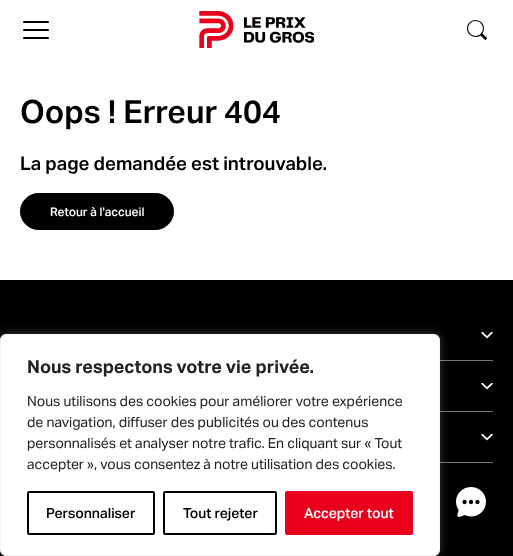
<!DOCTYPE html>
<meta charset="utf-8">
<style>body { margin: 0 } canvas { display: block }</style>
<canvas id="canvas" width="513" height="556"></canvas>
<img id="img1" src="img_01.png" hidden>
<img id="img2" src="img_02.png" hidden>
<img id="img3" src="img_03.png" hidden>
<img id="img4" src="img_04.png" hidden>
<img id="img5" src="img_05.png" hidden>
<script>
window.onload = function () {
	const canvas = document.getElementById("canvas");
	const ctx = canvas.getContext("2d");
	ctx.miterLimit = 4;
	ctx.fontKerning = "normal";
	function txt(s, x, y) {
		ctx.fillText(s, x, y);
	}
	function fill(x, y, w, h) {
		ctx.fillRect(x, y, w, h);
	}
	function round(x, y, w, h, r) {
		ctx.beginPath();
		ctx.roundRect(x, y, w, h, r);
		ctx.fill();
	}
	function img(id, x, y, w, h) {
		ctx.drawImage(document.getElementById(id), x, y, w, h);
	}

	ctx.fillStyle = "#FFFFFF";
	fill(0, 0, 513, 556);
	ctx.fillStyle = "#000000";
	round(23, 21, 26, 2, 1);
	round(23, 29, 26, 2, 1);
	round(23, 37, 26, 2, 1);
	img("img1", 199, 11, 35, 37);
	img("img2", 244, 17, 70, 26);
	img("img3", 467, 20, 20, 20);
	ctx.beginPath();
	ctx.roundRect(20.5, 193.5, 153, 36, 18);
	ctx.fill();
	ctx.strokeStyle = "#000000";
	ctx.stroke();
	fill(0, 280, 513, 276);
	ctx.fillStyle = "#757575";
	fill(440, 360, 53, 1);
	img("img4", 481, 332, 12, 7);
	fill(440, 411, 53, 1);
	img("img4", 481, 383, 12, 7);
	fill(440, 462, 53, 1);
	img("img4", 481, 434, 12, 7);
	ctx.fillStyle = "rgba(172, 171, 171, 0.3)";
	ctx.filter = "blur(5px)";
	ctx.beginPath();
	ctx.roundRect(0, 333, 440, 222, 6);
	ctx.fill();
	ctx.filter = "none";
	ctx.fillStyle = "#FFFFFF";
	ctx.beginPath();
	ctx.roundRect(0.5, 334.5, 439, 221, 5.5);
	ctx.fill();
	ctx.strokeStyle = "#F4F4F4";
	ctx.stroke();
	ctx.beginPath();
	ctx.roundRect(28, 492, 126, 42, 1);
	ctx.strokeStyle = "#000000";
	ctx.lineWidth = 2;
	ctx.stroke();
	ctx.beginPath();
	ctx.roundRect(164, 492, 112, 42, 1);
	ctx.stroke();
	ctx.fillStyle = "#EA001D";
	ctx.beginPath();
	ctx.roundRect(286, 492, 126, 42, 1);
	ctx.fill();
	ctx.strokeStyle = "#EA001D";
	ctx.stroke();
	img("img5", 456, 487, 30, 30);
	ctx.font = "600 32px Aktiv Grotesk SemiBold";
	ctx.fillStyle = "#000000";
	txt("Oops ! Erreur 404", 20, 123);
	ctx.font = "600 18.75px Aktiv Grotesk SemiBold";
	txt("La page demandée est introuvable.", 20, 170);
	ctx.font = "500 12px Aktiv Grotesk";
	ctx.fillStyle = "#FFFFFF";
	txt("Retour à l'accueil", 50, 216);
	ctx.font = "bold 18px Aktiv Grotesk";
	ctx.fillStyle = "#212121";
	txt("Nous respectons votre vie privée.", 27, 373);
	ctx.font = "14px Aktiv Grotesk";
	txt("Nous utilisons des cookies pour améliorer votre expérience", 27, 406);
	txt("de navigation, diffuser des publicités ou des contenus", 27, 427);
	txt("personnalisés et analyser notre trafic. En cliquant sur « Tout", 27, 448);
	txt("accepter », vous consentez à notre utilisation des cookies.", 27, 469);
	ctx.font = "500 14px Aktiv Grotesk";
	ctx.fillStyle = "#000000";
	txt("Personnaliser", 46, 518);
	txt("Tout rejeter", 183, 518);
	ctx.fillStyle = "#FFFFFF";
	txt("Accepter tout", 304, 518);
};
</script>
